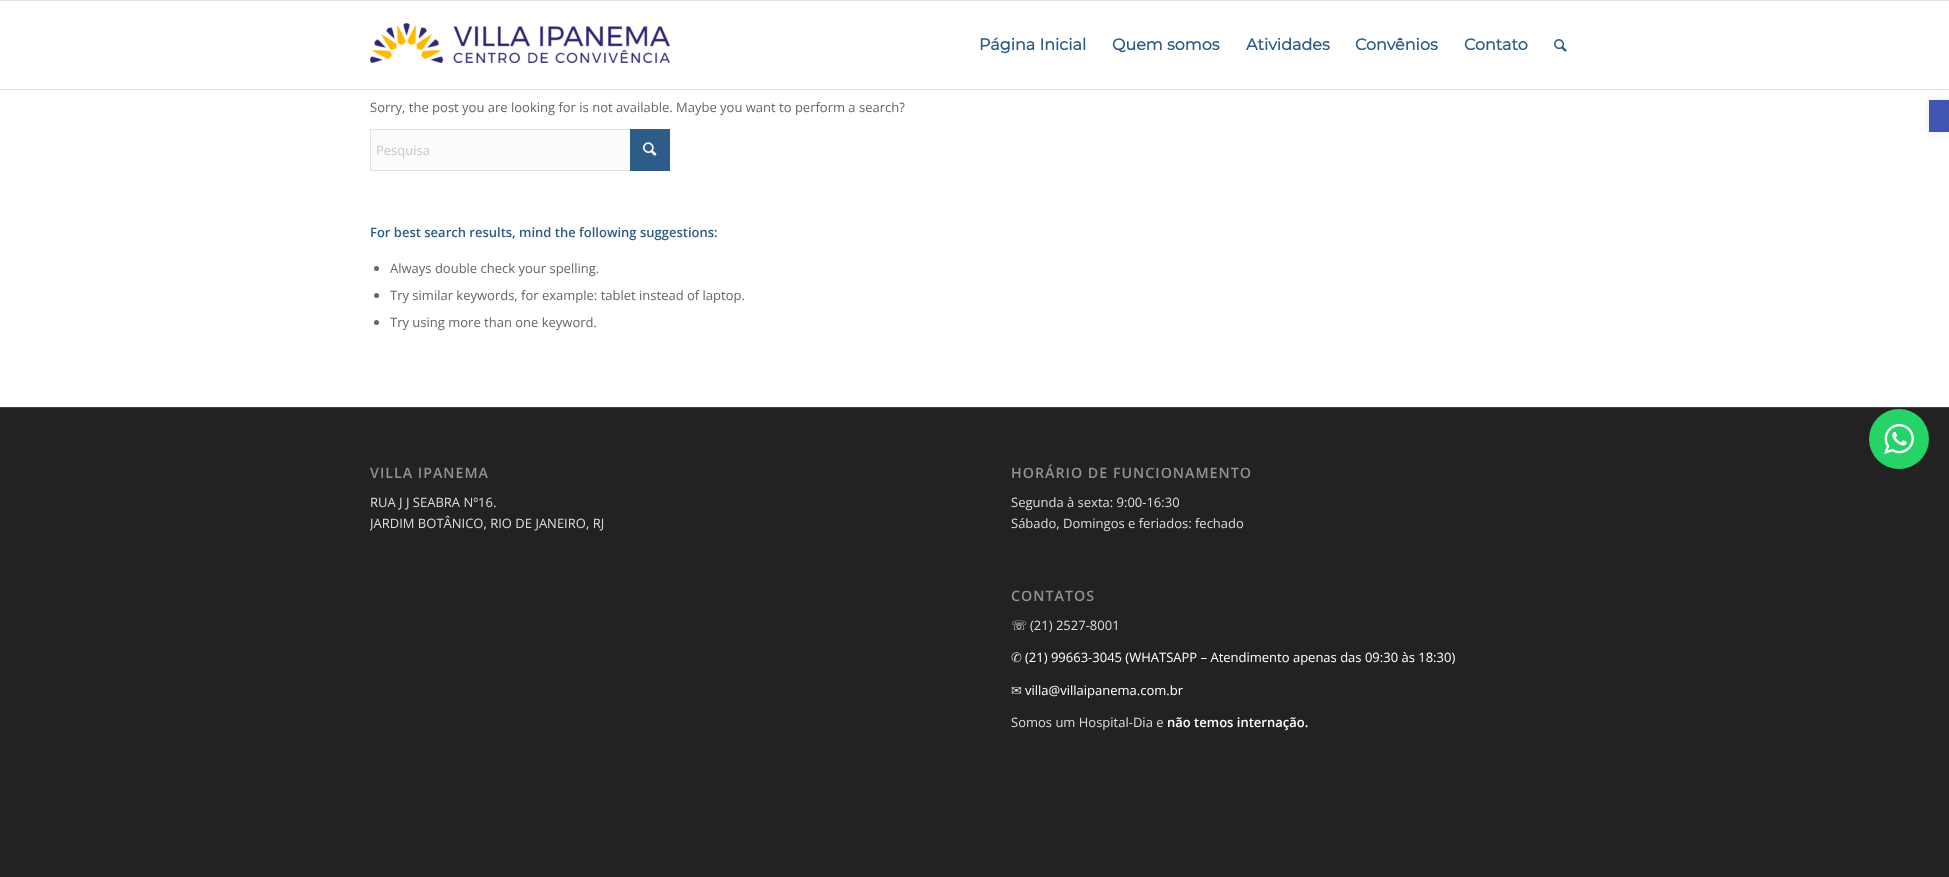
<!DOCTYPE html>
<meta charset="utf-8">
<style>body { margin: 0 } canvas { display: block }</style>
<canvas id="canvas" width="1949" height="877"></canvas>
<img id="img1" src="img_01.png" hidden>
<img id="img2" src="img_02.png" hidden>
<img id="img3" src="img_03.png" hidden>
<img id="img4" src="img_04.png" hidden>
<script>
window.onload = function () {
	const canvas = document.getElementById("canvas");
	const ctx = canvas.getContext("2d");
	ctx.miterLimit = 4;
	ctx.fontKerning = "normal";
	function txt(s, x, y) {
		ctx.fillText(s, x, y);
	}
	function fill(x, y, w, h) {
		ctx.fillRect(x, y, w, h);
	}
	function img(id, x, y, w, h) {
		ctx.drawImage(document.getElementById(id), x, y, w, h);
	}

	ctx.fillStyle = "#FFFFFF";
	fill(0, 0, 1949, 877);
	ctx.fillStyle = "#E1E1E1";
	fill(0, 13, 1949, 1);
	ctx.fillStyle = "rgba(255, 255, 255, 0.95)";
	fill(0, 13, 1949, 1);
	ctx.fillStyle = "#E1E1E1";
	fill(0, 0, 1949, 1);
	fill(0, 89, 1949, 1);
	img("img1", 370, 23, 300, 40);
	img("img2", 1554, 39, 13, 13);
	ctx.fillStyle = "#FCFCFC";
	fill(371, 130, 259, 40);
	ctx.strokeStyle = "#E1E1E1";
	ctx.strokeRect(370.5, 129.5, 299, 41);
	ctx.fillStyle = "#2D5C88";
	fill(630, 129, 40, 42);
	img("img3", 643, 142, 14, 14);
	ctx.fillStyle = "#666666";
	ctx.beginPath();
	ctx.arc(376.5, 268.5, 2.5, 0, Math.PI * 2);
	ctx.fill();
	ctx.beginPath();
	ctx.arc(376.5, 295.5, 2.5, 0, Math.PI * 2);
	ctx.fill();
	ctx.beginPath();
	ctx.arc(376.5, 322.5, 2.5, 0, Math.PI * 2);
	ctx.fill();
	ctx.fillStyle = "#222222";
	fill(0, 408, 1949, 469);
	ctx.fillStyle = "#444444";
	fill(0, 407, 1949, 1);
	ctx.fillStyle = "rgba(0, 0, 0, 0.1)";
	ctx.filter = "blur(5px)";
	ctx.beginPath();
	ctx.rect(1929, 100, 20, 32);
	ctx.fill();
	ctx.filter = "none";
	ctx.fillStyle = "#4054B2";
	fill(1929, 100, 20, 32);
	ctx.fillStyle = "#25D366";
	ctx.beginPath();
	ctx.arc(1899, 439, 30, 0, Math.PI * 2);
	ctx.fill();
	img("img4", 1884, 424, 30, 30);
	ctx.font = "bold 16px Montserrat";
	ctx.fillStyle = "#2D5C88";
	txt("Página Inicial", 979, 50);
	txt("Quem somos", 1112, 50);
	txt("Atividades", 1246, 50);
	txt("Convênios", 1355, 50);
	txt("Contato", 1464, 50);
	ctx.font = "13px Open Sans";
	ctx.fillStyle = "#666666";
	txt("Sorry, the post you are looking for is not available. Maybe you want to perform a search?", 370, 112);
	ctx.fillStyle = "#C7C7C7";
	txt("Pesquisa", 376, 155);
	ctx.font = "600 13px Open Sans";
	ctx.fillStyle = "#2D5C88";
	txt("For best search results, mind the following suggestions:", 370, 237);
	ctx.font = "13px Open Sans";
	ctx.fillStyle = "#666666";
	txt("Always double check your spelling.", 390, 273);
	txt("Try similar keywords, for example: tablet instead of laptop.", 390, 300);
	txt("Try using more than one keyword.", 390, 327);
	ctx.letterSpacing = "1px";
	ctx.font = "600 14.25px Open Sans";
	ctx.fillStyle = "#919191";
	txt("VILLA IPANEMA", 370, 478);
	ctx.letterSpacing = "0px";
	ctx.font = "13px Open Sans";
	ctx.fillStyle = "#DDDDDD";
	txt("RUA J J SEABRA Nº16.", 370, 507);
	ctx.save();
	ctx.beginPath();
	ctx.rect(370, 453, 568, 93);
	ctx.clip();
	txt("JARDIM BOTÂNICO, RIO DE JANEIRO, RJ", 370, 528);
	ctx.restore();
	ctx.letterSpacing = "1px";
	ctx.font = "600 14.25px Open Sans";
	ctx.fillStyle = "#919191";
	txt("HORÁRIO DE FUNCIONAMENTO", 1011, 478);
	ctx.letterSpacing = "0px";
	ctx.font = "13px Open Sans";
	ctx.fillStyle = "#DDDDDD";
	txt("Segunda à sexta: 9:00-16:30", 1011, 507);
	txt("Sábado, Domingos e feriados: fechado", 1011, 528);
	ctx.letterSpacing = "1px";
	ctx.font = "600 14.25px Open Sans";
	ctx.fillStyle = "#919191";
	txt("CONTATOS", 1011, 601);
	ctx.letterSpacing = "0px";
	ctx.font = "13px DejaVu Sans";
	ctx.fillStyle = "#DDDDDD";
	txt("☏", 1011, 630);
	ctx.font = "13px Open Sans";
	txt("(21) 2527-8001", 1030, 630);
	ctx.font = "13px DejaVu Sans";
	txt("✆", 1011, 662);
	ctx.font = "13px Open Sans";
	ctx.fillStyle = "#FFFFFF";
	txt("(21) 99663-3045 (WHATSAPP – Atendimento apenas das 09:30 às 18:30)", 1025, 662);
	ctx.font = "13px DejaVu Sans";
	ctx.fillStyle = "#DDDDDD";
	txt("✉", 1011, 695);
	ctx.font = "13px Open Sans";
	ctx.fillStyle = "#FFFFFF";
	txt("villa@villaipanema.com.br", 1025, 695);
	ctx.fillStyle = "#DDDDDD";
	txt("Somos um Hospital-Dia e", 1011, 727);
	ctx.font = "600 13px Open Sans";
	ctx.fillStyle = "#FFFFFF";
	txt("não temos internação.", 1167, 727);
};
</script>
